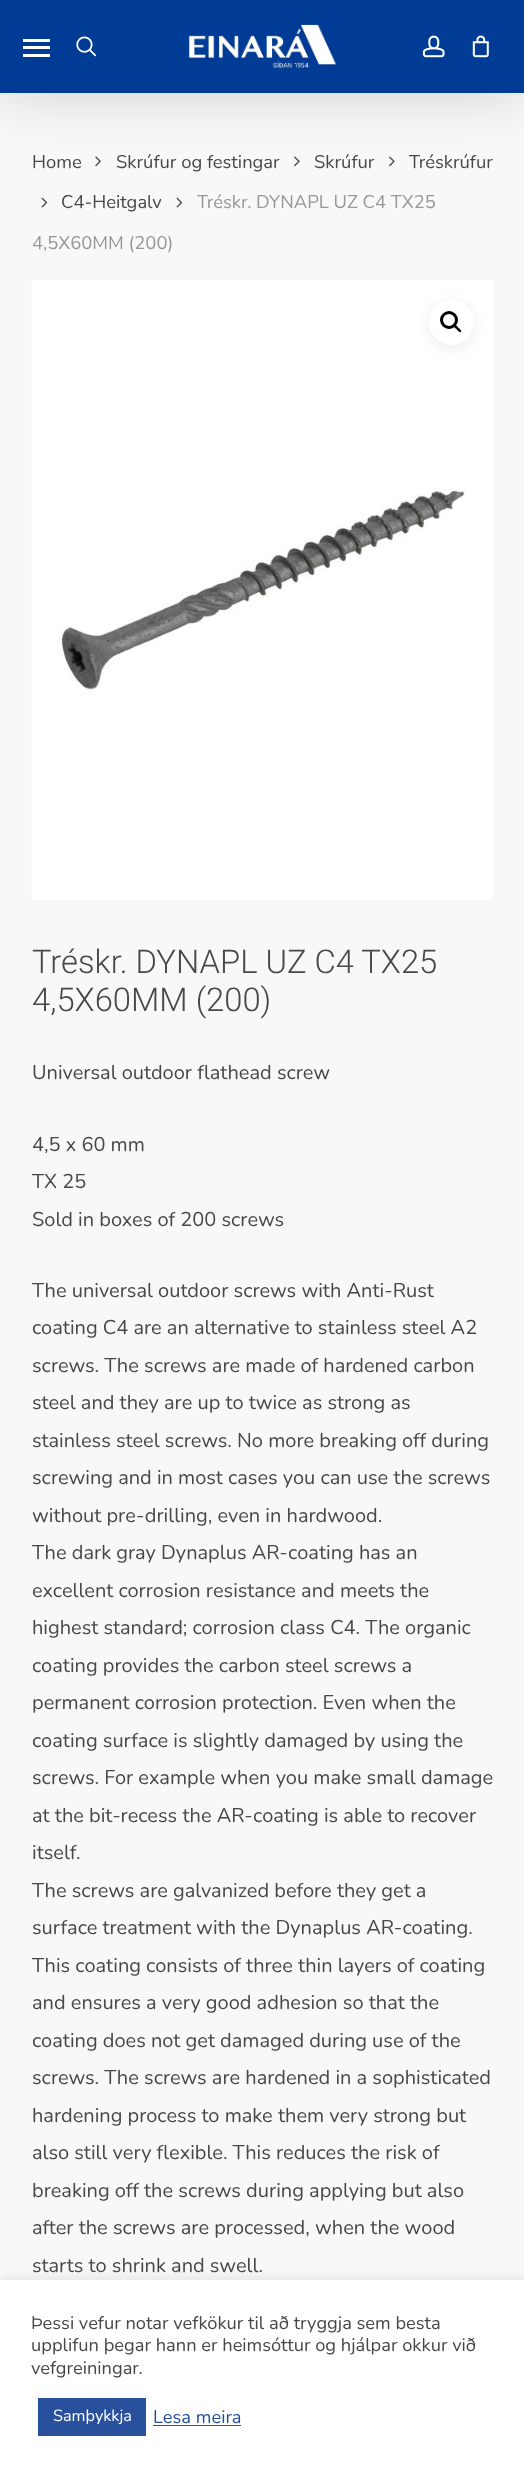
<!DOCTYPE html>
<meta charset="utf-8">
<style>body { margin: 0 } canvas { display: block }</style>
<canvas id="canvas" width="524" height="2473"></canvas>
<img id="img1" src="img_05.png" hidden>
<img id="img2" src="img_06.png" hidden>
<img id="img3" src="img_01.png" hidden>
<img id="img4" src="img_02.png" hidden>
<img id="img5" src="img_03.png" hidden>
<img id="img6" src="img_04.png" hidden>
<img id="img7" src="img_07.png" hidden>
<img id="img8" src="img_08.png" hidden>
<script>
window.onload = function () {
	const canvas = document.getElementById("canvas");
	const ctx = canvas.getContext("2d");
	ctx.miterLimit = 4;
	ctx.fontKerning = "normal";
	function txt(s, x, y) {
		ctx.fillText(s, x, y);
	}
	function fill(x, y, w, h) {
		ctx.fillRect(x, y, w, h);
	}
	function img(id, x, y, w, h) {
		ctx.drawImage(document.getElementById(id), x, y, w, h);
	}

	ctx.fillStyle = "#F8F8F8";
	fill(0, 0, 524, 2473);
	img("img1", 95, 156, 6, 11);
	img("img2", 294, 156, 6, 11);
	img("img2", 389, 156, 6, 11);
	ctx.fillStyle = "rgba(0, 0, 0, 0.15)";
	ctx.filter = "blur(28px)";
	ctx.beginPath();
	ctx.rect(0, 4, 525, 92);
	ctx.fill();
	ctx.filter = "none";
	ctx.fillStyle = "#003C96";
	fill(0, 0, 524, 93);
	img("img3", 188, 24, 149, 45);
	ctx.fillStyle = "#FFFFFF";
	fill(23, 39, 27, 3);
	fill(23, 54, 27, 3);
	fill(23, 46, 27, 3);
	img("img4", 76, 36, 21, 21);
	img("img5", 422, 35, 23, 23);
	img("img6", 472, 35, 17, 23);
	img("img7", 41, 197, 7, 11);
	img("img7", 176, 197, 7, 11);
	ctx.fillStyle = "#EFEFEF";
	fill(31, 280, 463, 620);
	img("img8", 31, 280, 463, 620);
	ctx.fillStyle = "rgba(0, 0, 0, 0.08)";
	ctx.filter = "blur(7.5px)";
	ctx.beginPath();
	ctx.roundRect(429, 303, 45, 45, 22.5);
	ctx.fill();
	ctx.filter = "none";
	ctx.fillStyle = "#FFFFFF";
	ctx.beginPath();
	ctx.arc(451.5, 322.5, 22.5, 0, Math.PI * 2);
	ctx.fill();
	ctx.beginPath();
	ctx.arc(449, 320, 7.5, 0, Math.PI * 2);
	ctx.strokeStyle = "#000000";
	ctx.lineWidth = 3;
	ctx.stroke();
	ctx.fillStyle = "#000000";
	ctx.beginPath();
	ctx.moveTo(453.5, 324.5);
	ctx.bezierCurveTo(455, 323.5, 457.5, 326.5, 458, 327.5);
	ctx.bezierCurveTo(459, 328, 462, 330.5, 461, 332);
	ctx.bezierCurveTo(459.5, 333, 457, 330, 456.5, 329);
	ctx.bezierCurveTo(455.5, 328.5, 452.5, 326, 453.5, 324.5);
	ctx.closePath();
	ctx.fill();
	ctx.fillStyle = "rgba(172, 171, 171, 0.3)";
	ctx.filter = "blur(6px)";
	ctx.beginPath();
	ctx.rect(0, 2279, 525, 194);
	ctx.fill();
	ctx.filter = "none";
	ctx.fillStyle = "#FFFFFF";
	fill(0, 2280, 524, 193);
	ctx.fillStyle = "#29509D";
	fill(38, 2398, 108, 38);
	fill(153, 2425, 88, 1);
	ctx.font = "200 18.4px Nunito";
	ctx.fillStyle = "#484848";
	txt("Home", 32, 168);
	txt("Skrúfur og festingar", 116, 168);
	txt("Skrúfur", 314, 168);
	txt("Tréskrúfur", 409, 168);
	txt("C4-Heitgalv", 61, 208);
	ctx.fillStyle = "#979797";
	txt("Tréskr. DYNAPL UZ C4 TX25", 197, 208);
	txt("4,5X60MM (200)", 32, 249);
	ctx.font = "300 32.75px Roboto";
	ctx.fillStyle = "#484848";
	txt("Tréskr. DYNAPL UZ C4 TX25", 32, 973);
	txt("4,5X60MM (200)", 32, 1011);
	ctx.font = "200 20px Nunito";
	txt("Universal outdoor flathead screw", 32, 1079);
	txt("4,5 x 60 mm", 32, 1151);
	txt("TX 25", 32, 1188);
	txt("Sold in boxes of 200 screws", 32, 1226);
	txt("The universal outdoor screws with Anti-Rust", 32, 1297);
	txt("coating C4 are an alternative to stainless steel A2", 32, 1334);
	txt("screws. The screws are made of hardened carbon", 32, 1372);
	txt("steel and they are up to twice as strong as", 32, 1409);
	txt("stainless steel screws. No more breaking off during", 32, 1447);
	txt("screwing and in most cases you can use the screws", 32, 1484);
	txt("without pre-drilling, even in hardwood.", 32, 1522);
	txt("The dark gray Dynaplus AR-coating has an", 32, 1559);
	txt("excellent corrosion resistance and meets the", 32, 1597);
	txt("highest standard; corrosion class C4. The organic", 32, 1634);
	txt("coating provides the carbon steel screws a", 32, 1672);
	txt("permanent corrosion protection. Even when the", 32, 1709);
	txt("coating surface is slightly damaged by using the", 32, 1747);
	txt("screws. For example when you make small damage", 32, 1784);
	txt("at the bit-recess the AR-coating is able to recover", 32, 1822);
	txt("itself.", 32, 1859);
	txt("The screws are galvanized before they get a", 32, 1897);
	txt("surface treatment with the Dynaplus AR-coating.", 32, 1934);
	txt("This coating consists of three thin layers of coating", 32, 1972);
	txt("and ensures a very good adhesion so that the", 32, 2009);
	txt("coating does not get damaged during use of the", 32, 2047);
	txt("screws. The screws are hardened in a sophisticated", 32, 2084);
	txt("hardening process to make them very strong but", 32, 2122);
	txt("also still very flexible. This reduces the risk of", 32, 2159);
	txt("breaking off the screws during applying but also", 32, 2197);
	txt("after the screws are processed, when the wood", 32, 2234);
	txt("starts to shrink and swell.", 32, 2272);
	ctx.font = "200 18.3px Nunito";
	txt("Þessi vefur notar vefkökur til að tryggja sem besta", 31, 2329);
	txt("upplifun þegar hann er heimsóttur og hjálpar okkur við", 31, 2351);
	txt("vefgreiningar.", 31, 2374);
	ctx.font = "200 16.25px Nunito";
	ctx.fillStyle = "#FFFFFF";
	txt("Samþykkja", 53, 2421);
	ctx.font = "200 18.3px Nunito";
	ctx.fillStyle = "#29509D";
	txt("Lesa meira", 153, 2423);
};
</script>
